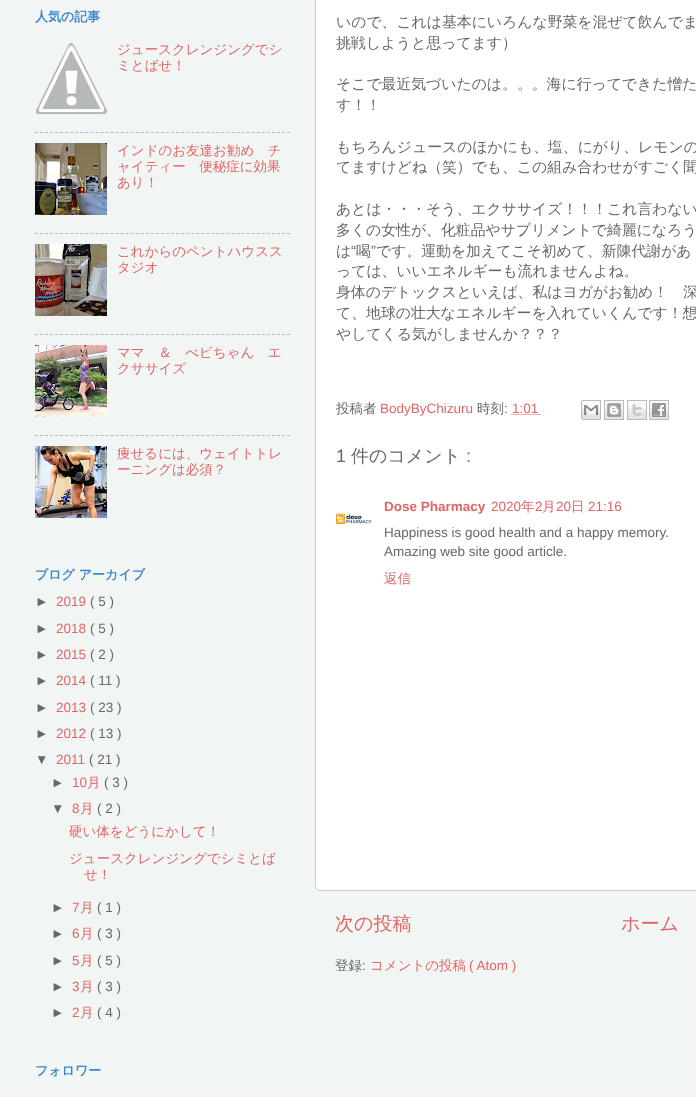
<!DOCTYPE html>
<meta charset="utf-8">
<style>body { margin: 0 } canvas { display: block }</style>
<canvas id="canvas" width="696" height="1097"></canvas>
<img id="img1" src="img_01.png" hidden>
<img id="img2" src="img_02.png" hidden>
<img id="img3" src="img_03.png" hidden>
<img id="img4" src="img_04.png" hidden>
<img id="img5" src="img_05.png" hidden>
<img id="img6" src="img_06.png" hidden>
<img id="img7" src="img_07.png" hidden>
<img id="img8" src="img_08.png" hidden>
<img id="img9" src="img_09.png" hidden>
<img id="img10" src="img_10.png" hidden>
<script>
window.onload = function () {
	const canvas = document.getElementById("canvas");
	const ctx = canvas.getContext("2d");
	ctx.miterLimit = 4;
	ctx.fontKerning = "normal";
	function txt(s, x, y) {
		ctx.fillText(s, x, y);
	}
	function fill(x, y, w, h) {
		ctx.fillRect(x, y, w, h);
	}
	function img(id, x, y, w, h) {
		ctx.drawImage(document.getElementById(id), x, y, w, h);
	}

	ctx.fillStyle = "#F1F6F5";
	fill(0, 0, 696, 1097);
	img("img1", 36, 43, 71, 71);
	ctx.beginPath();
	ctx.moveTo(35, 132.5);
	ctx.lineTo(290, 132.5);
	ctx.strokeStyle = "#B9BBBB";
	ctx.setLineDash([3, 2.04]);
	ctx.stroke();
	img("img2", 35, 143, 72, 72);
	ctx.beginPath();
	ctx.moveTo(35, 233.5);
	ctx.lineTo(290, 233.5);
	ctx.stroke();
	img("img3", 35, 244, 72, 72);
	ctx.beginPath();
	ctx.moveTo(35, 334.5);
	ctx.lineTo(290, 334.5);
	ctx.stroke();
	img("img4", 35, 345, 72, 72);
	ctx.beginPath();
	ctx.moveTo(35, 435.5);
	ctx.lineTo(290, 435.5);
	ctx.stroke();
	img("img5", 35, 446, 72, 72);
	ctx.fillStyle = "#FFFFFF";
	ctx.beginPath();
	ctx.roundRect(315.5, -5.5, 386, 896, 4.5);
	ctx.fill();
	ctx.strokeStyle = "#CCCCCC";
	ctx.setLineDash([]);
	ctx.stroke();
	ctx.beginPath();
	ctx.moveTo(511.5, 414.5);
	ctx.lineTo(541.5, 414.5);
	ctx.strokeStyle = "#E06666";
	ctx.setLineDash([1, 1]);
	ctx.stroke();
	img("img6", 581, 400, 20, 20);
	img("img7", 604, 400, 20, 20);
	img("img8", 627, 400, 20, 20);
	img("img9", 649, 400, 20, 20);
	img("img10", 336, 513, 36, 12);
	ctx.font = "bold 13px WenQuanYi Zen Hei";
	ctx.fillStyle = "#3D85C6";
	txt("人気の記事", 35, 21);
	ctx.font = "500 13.5px WenQuanYi Zen Hei";
	ctx.fillStyle = "#E06666";
	txt("ジュースクレンジングでシ", 117, 54);
	txt("ミとばせ！", 117, 70);
	txt("インドのお友達お勧め　チ", 117, 155);
	txt("ャイティー　便秘症に効果", 117, 171);
	txt("あり！", 117, 187);
	txt("これからのペントハウスス", 117, 256);
	txt("タジオ", 117, 272);
	txt("ママ　＆　べビちゃん　エ", 117, 357);
	txt("クササイズ", 117, 373);
	txt("痩せるには、ウェイトトレ", 117, 458);
	txt("ーニングは必須？", 117, 474);
	ctx.font = "bold 13px WenQuanYi Zen Hei";
	ctx.fillStyle = "#3D85C6";
	txt("ブログ アーカイブ", 35, 579);
	ctx.font = "13.5px Liberation Sans";
	ctx.fillStyle = "#686868";
	txt("►", 35, 606);
	ctx.fillStyle = "#E06666";
	txt("2019", 56, 606);
	ctx.fillStyle = "#686868";
	txt("( 5 )", 90, 606);
	txt("►", 35, 633);
	ctx.fillStyle = "#E06666";
	txt("2018", 56, 633);
	ctx.fillStyle = "#686868";
	txt("( 5 )", 90, 633);
	txt("►", 35, 659);
	ctx.fillStyle = "#E06666";
	txt("2015", 56, 659);
	ctx.fillStyle = "#686868";
	txt("( 2 )", 90, 659);
	txt("►", 35, 685);
	ctx.fillStyle = "#E06666";
	txt("2014", 56, 685);
	ctx.fillStyle = "#686868";
	txt("( 11 )", 90, 685);
	txt("►", 35, 712);
	ctx.fillStyle = "#E06666";
	txt("2013", 56, 712);
	ctx.fillStyle = "#686868";
	txt("( 23 )", 90, 712);
	txt("►", 35, 738);
	ctx.fillStyle = "#E06666";
	txt("2012", 56, 738);
	ctx.fillStyle = "#686868";
	txt("( 13 )", 90, 738);
	txt("▼", 35, 764);
	ctx.fillStyle = "#E06666";
	txt("2011", 56, 764);
	ctx.fillStyle = "#686868";
	txt("( 21 )", 89, 764);
	txt("►", 51, 787);
	ctx.fillStyle = "#E06666";
	txt("10", 72, 787);
	ctx.font = "500 13.5px WenQuanYi Zen Hei";
	txt("月", 87, 787);
	ctx.font = "13.5px Liberation Sans";
	ctx.fillStyle = "#686868";
	txt("( 3 )", 104, 787);
	txt("▼", 51, 813);
	ctx.fillStyle = "#E06666";
	txt("8", 72, 813);
	ctx.font = "500 13.5px WenQuanYi Zen Hei";
	txt("月", 80, 813);
	ctx.font = "13.5px Liberation Sans";
	ctx.fillStyle = "#686868";
	txt("( 2 )", 97, 813);
	ctx.font = "500 13.5px WenQuanYi Zen Hei";
	ctx.fillStyle = "#E06666";
	txt("硬い体をどうにかして！", 69, 836);
	txt("ジュースクレンジングでシミとば", 69, 863);
	txt("せ！", 84, 879);
	ctx.font = "13.5px Liberation Sans";
	ctx.fillStyle = "#686868";
	txt("►", 51, 912);
	ctx.fillStyle = "#E06666";
	txt("7", 72, 912);
	ctx.font = "500 13.5px WenQuanYi Zen Hei";
	txt("月", 80, 912);
	ctx.font = "13.5px Liberation Sans";
	ctx.fillStyle = "#686868";
	txt("( 1 )", 97, 912);
	txt("►", 51, 938);
	ctx.fillStyle = "#E06666";
	txt("6", 72, 938);
	ctx.font = "500 13.5px WenQuanYi Zen Hei";
	txt("月", 80, 938);
	ctx.font = "13.5px Liberation Sans";
	ctx.fillStyle = "#686868";
	txt("( 3 )", 97, 938);
	txt("►", 51, 965);
	ctx.fillStyle = "#E06666";
	txt("5", 72, 965);
	ctx.font = "500 13.5px WenQuanYi Zen Hei";
	txt("月", 80, 965);
	ctx.font = "13.5px Liberation Sans";
	ctx.fillStyle = "#686868";
	txt("( 5 )", 97, 965);
	txt("►", 51, 991);
	ctx.fillStyle = "#E06666";
	txt("3", 72, 991);
	ctx.font = "500 13.5px WenQuanYi Zen Hei";
	txt("月", 80, 991);
	ctx.font = "13.5px Liberation Sans";
	ctx.fillStyle = "#686868";
	txt("( 3 )", 97, 991);
	txt("►", 51, 1017);
	ctx.fillStyle = "#E06666";
	txt("2", 72, 1017);
	ctx.font = "500 13.5px WenQuanYi Zen Hei";
	txt("月", 80, 1017);
	ctx.font = "13.5px Liberation Sans";
	ctx.fillStyle = "#686868";
	txt("( 4 )", 97, 1017);
	ctx.font = "bold 13px WenQuanYi Zen Hei";
	ctx.fillStyle = "#3D85C6";
	txt("フォロワー", 35, 1075);
	ctx.font = "500 14.85px WenQuanYi Zen Hei";
	ctx.fillStyle = "#686868";
	txt("いので、これは基本にいろんな野菜を混ぜて飲んでま", 336, 27);
	txt("挑戦しようと思ってます）", 336, 48);
	txt("そこで最近気づいたのは。。。海に行ってできた憎た", 336, 89);
	txt("す！！", 336, 110);
	txt("もちろんジュースのほかにも、塩、にがり、レモンの", 336, 152);
	txt("てますけどね（笑）でも、この組み合わせがすごく聞", 336, 172);
	txt("あとは・・・そう、エクササイズ！！！これ言わない", 336, 214);
	txt("多くの女性が、化粧品やサプリメントで綺麗になろう", 336, 235);
	txt("は", 336, 256);
	ctx.font = "14.85px Liberation Sans";
	txt("“", 351, 256);
	ctx.font = "500 14.85px WenQuanYi Zen Hei";
	txt("喝", 356, 256);
	ctx.font = "14.85px Liberation Sans";
	txt("”", 371, 256);
	ctx.font = "500 14.85px WenQuanYi Zen Hei";
	txt("です。運動を加えてこそ初めて、新陳代謝があ", 376, 256);
	txt("っては、いいエネルギーも流れませんよね。", 336, 276);
	txt("身体のデトックスといえば、私はヨガがお勧め！　深", 336, 297);
	txt("て、地球の壮大なエネルギーを入れていくんです！想", 336, 318);
	txt("やしてくる気がしませんか？？？", 336, 339);
	ctx.font = "500 13.5px WenQuanYi Zen Hei";
	txt("投稿者", 336, 413);
	ctx.font = "13.5px Liberation Sans";
	ctx.fillStyle = "#E06666";
	txt("BodyByChizuru", 380, 413);
	ctx.font = "500 13.5px WenQuanYi Zen Hei";
	ctx.fillStyle = "#686868";
	txt("時刻", 477, 413);
	ctx.font = "13.5px Liberation Sans";
	txt(":", 504, 413);
	ctx.fillStyle = "#E06666";
	txt("1:01", 512, 413);
	ctx.font = "18px Liberation Sans";
	ctx.fillStyle = "#686868";
	txt("1", 336, 462);
	ctx.font = "500 18px WenQuanYi Zen Hei";
	txt("件のコメント", 351, 462);
	ctx.font = "18px Liberation Sans";
	txt(":", 466, 462);
	ctx.font = "bold 13.5px Liberation Sans";
	ctx.fillStyle = "#E06666";
	txt("Dose Pharmacy", 384, 511);
	ctx.font = "13.5px Liberation Sans";
	txt("2020", 491, 511);
	ctx.font = "500 13.5px WenQuanYi Zen Hei";
	txt("年", 521, 511);
	ctx.font = "13.5px Liberation Sans";
	txt("2", 535, 511);
	ctx.font = "500 13.5px WenQuanYi Zen Hei";
	txt("月", 542, 511);
	ctx.font = "13.5px Liberation Sans";
	txt("20", 556, 511);
	ctx.font = "500 13.5px WenQuanYi Zen Hei";
	txt("日", 571, 511);
	ctx.font = "13.5px Liberation Sans";
	txt("21:16", 588, 511);
	ctx.fillStyle = "#686868";
	txt("Happiness is good health and a happy memory.", 384, 537);
	txt("Amazing web site good article.", 384, 556);
	ctx.font = "500 13.5px WenQuanYi Zen Hei";
	ctx.fillStyle = "#E06666";
	txt("返信", 384, 583);
	ctx.font = "500 19px WenQuanYi Zen Hei";
	txt("次の投稿", 335, 930);
	txt("ホーム", 621, 930);
	ctx.font = "500 13.5px WenQuanYi Zen Hei";
	ctx.fillStyle = "#686868";
	txt("登録", 335, 970);
	ctx.font = "13.5px Liberation Sans";
	txt(":", 362, 970);
	ctx.font = "500 13.5px WenQuanYi Zen Hei";
	ctx.fillStyle = "#E06666";
	txt("コメントの投稿", 370, 970);
	ctx.font = "13.5px Liberation Sans";
	txt("( Atom )", 469, 970);
};
</script>
